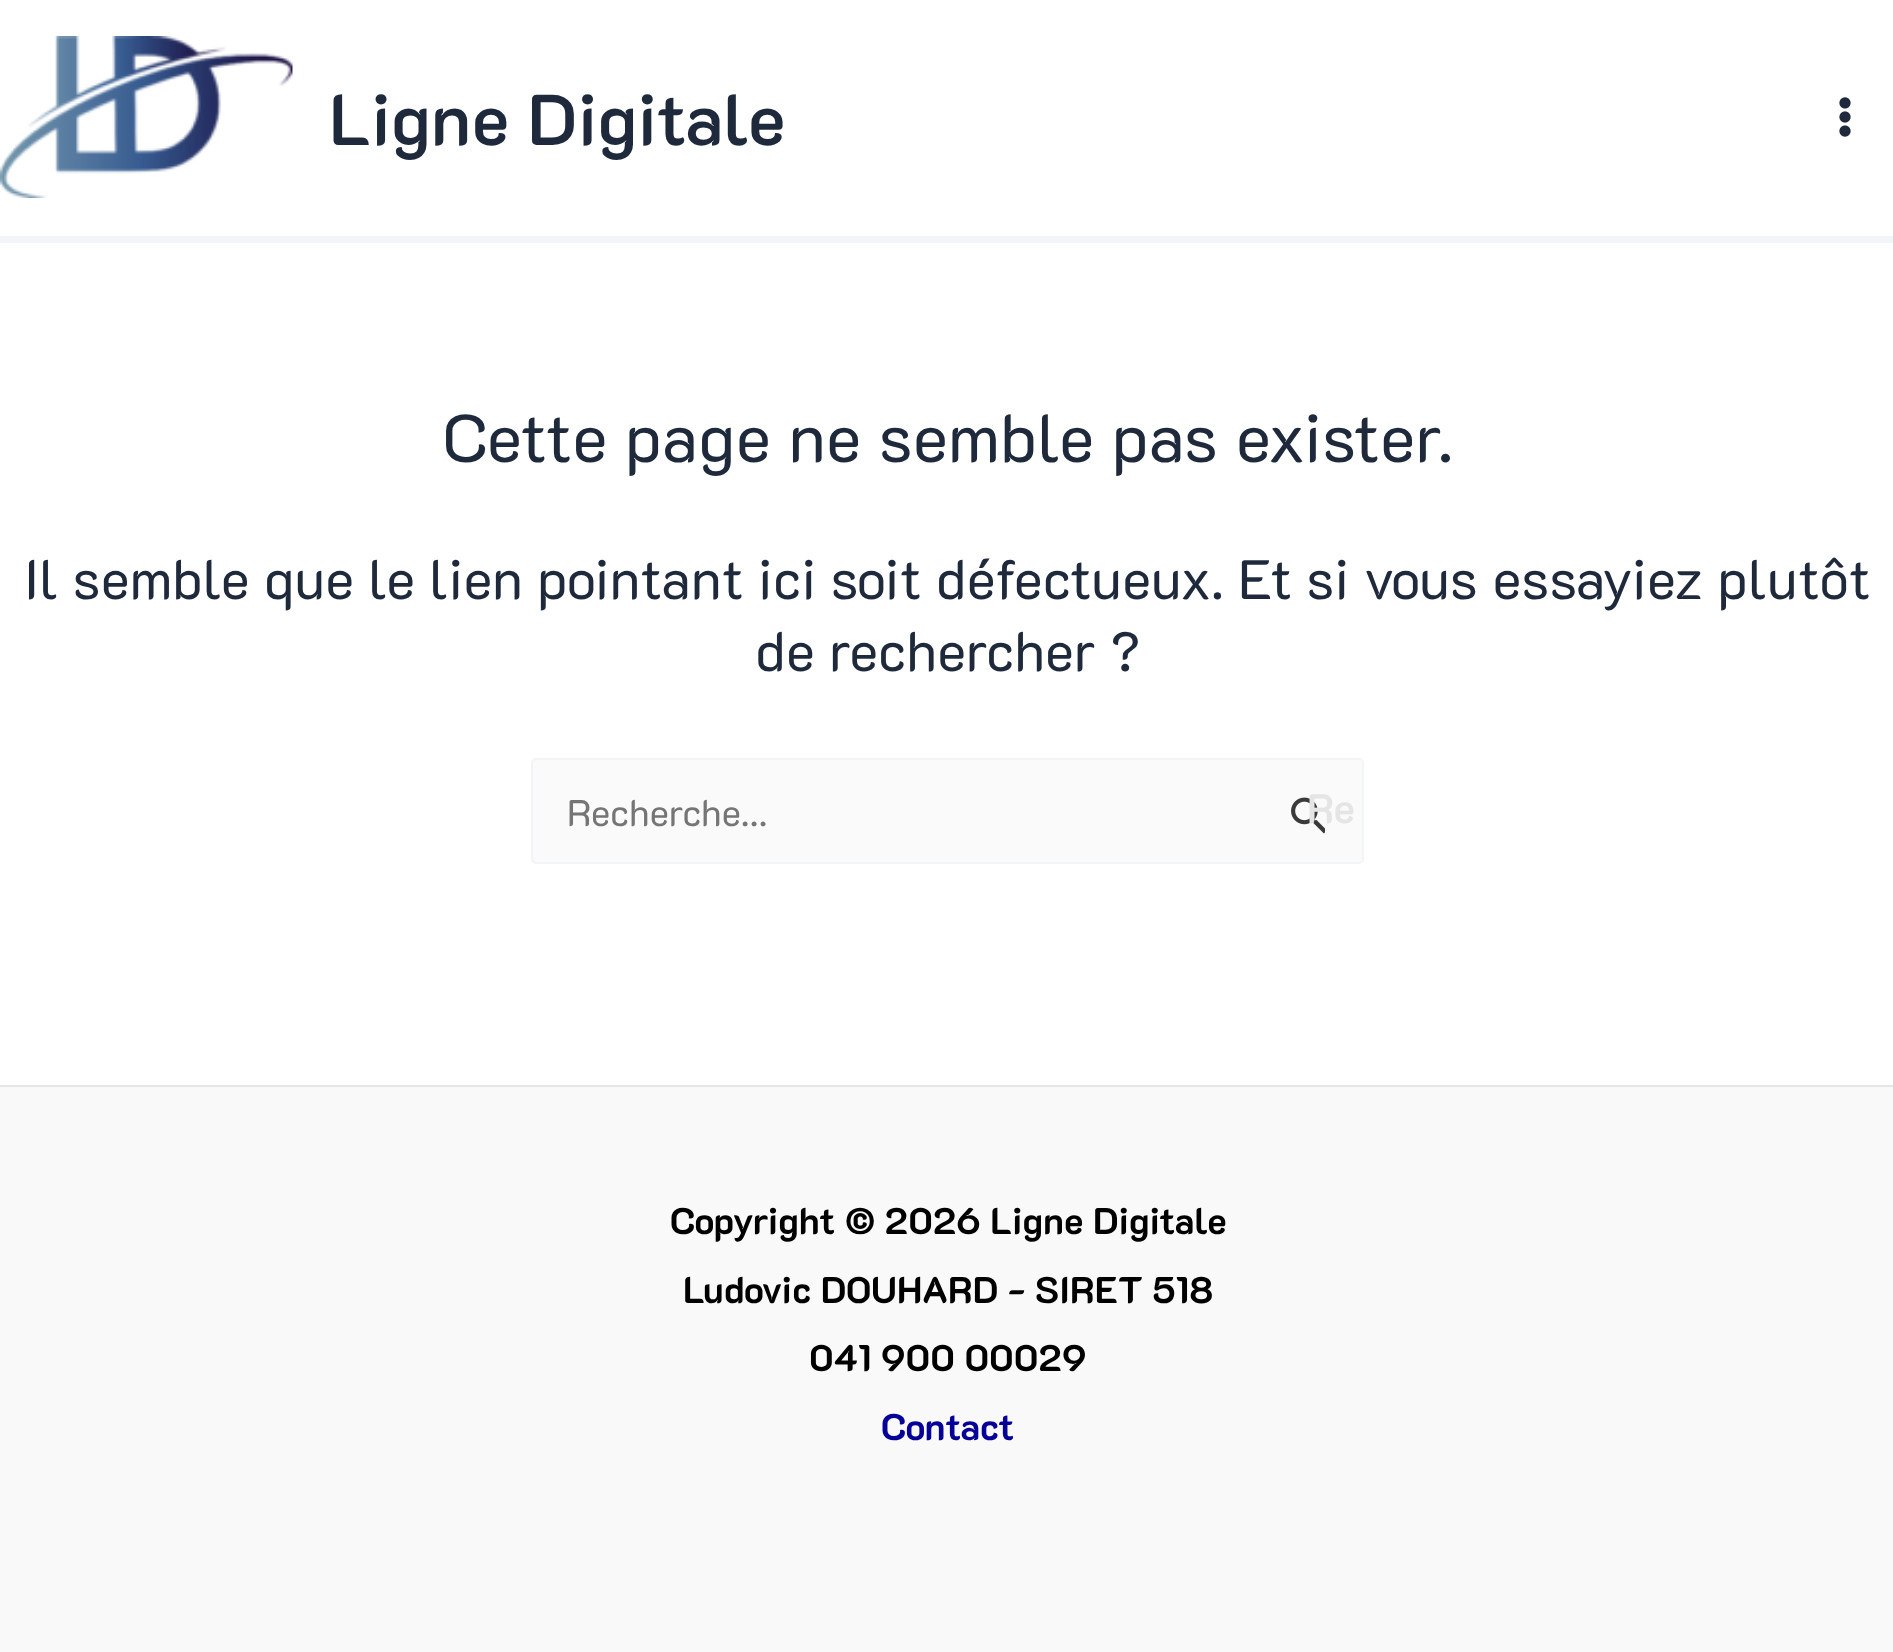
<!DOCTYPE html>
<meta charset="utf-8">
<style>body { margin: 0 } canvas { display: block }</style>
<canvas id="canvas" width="1893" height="1652"></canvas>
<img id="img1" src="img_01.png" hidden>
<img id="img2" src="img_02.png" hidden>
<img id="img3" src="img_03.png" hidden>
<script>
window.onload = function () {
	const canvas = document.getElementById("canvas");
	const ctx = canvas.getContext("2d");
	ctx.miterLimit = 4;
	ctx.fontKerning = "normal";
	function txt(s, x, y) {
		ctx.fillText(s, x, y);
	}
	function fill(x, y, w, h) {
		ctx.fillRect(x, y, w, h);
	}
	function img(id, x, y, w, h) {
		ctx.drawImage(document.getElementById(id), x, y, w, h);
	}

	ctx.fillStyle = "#FFFFFF";
	fill(0, 0, 1893, 1652);
	ctx.fillStyle = "#F2F5F7";
	fill(0, 236, 1893, 7);
	img("img1", 0, 36, 293, 162);
	img("img2", 1839, 97, 12, 40);
	ctx.fillStyle = "#FAFAFA";
	ctx.beginPath();
	ctx.roundRect(532, 759, 831, 104, 4);
	ctx.fill();
	ctx.strokeStyle = "#F2F5F7";
	ctx.lineWidth = 2;
	ctx.stroke();
	img("img3", 1291, 797, 34, 37);
	ctx.fillStyle = "#F9F9F9";
	fill(0, 1087, 1893, 565);
	ctx.fillStyle = "#E6E6E6";
	fill(0, 1085, 1893, 2);
	ctx.font = "600 71.75px 'K2D'";
	ctx.fillStyle = "#1E293B";
	txt("Ligne Digitale", 329, 145);
	ctx.font = "67.5px 'K2D'";
	txt("Cette page ne semble pas exister.", 442, 462);
	ctx.font = "55.4px 'K2D'";
	txt("Il semble que le lien pointant ici soit défectueux. Et si vous essayiez plutôt", 24, 599);
	txt("de rechercher ?", 755, 671);
	ctx.font = "37px 'K2D'";
	ctx.fillStyle = "#757575";
	txt("Recherche…", 567, 826);
	ctx.font = "600 41px 'K2D'";
	ctx.fillStyle = "#E5E5E5";
	txt("Re", 1307, 823);
	ctx.font = "bold 37px 'K2D'";
	ctx.fillStyle = "#000000";
	txt("Copyright © 2026 Ligne Digitale", 670, 1234);
	txt("Ludovic DOUHARD - SIRET 518", 683, 1303);
	txt("041 900 00029", 809, 1371);
	ctx.fillStyle = "#060097";
	txt("Contact", 881, 1440);
};
</script>
